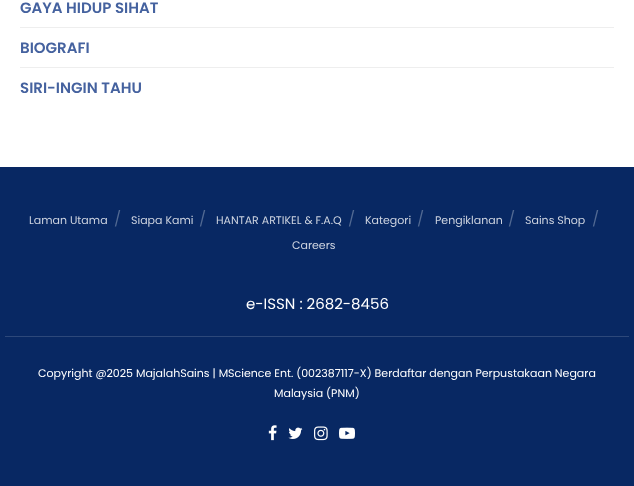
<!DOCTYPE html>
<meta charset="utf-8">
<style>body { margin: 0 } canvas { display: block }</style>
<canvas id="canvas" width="634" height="486"></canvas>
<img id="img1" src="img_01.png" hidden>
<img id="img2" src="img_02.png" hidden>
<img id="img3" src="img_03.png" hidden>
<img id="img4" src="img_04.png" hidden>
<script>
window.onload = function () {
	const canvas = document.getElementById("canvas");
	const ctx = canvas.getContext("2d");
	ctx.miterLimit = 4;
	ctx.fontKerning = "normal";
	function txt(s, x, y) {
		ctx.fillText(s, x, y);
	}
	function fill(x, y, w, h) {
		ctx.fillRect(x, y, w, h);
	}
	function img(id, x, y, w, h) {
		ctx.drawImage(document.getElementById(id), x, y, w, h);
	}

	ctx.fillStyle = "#FFFFFF";
	fill(0, 0, 634, 486);
	ctx.fillStyle = "#EEEEEE";
	fill(20, 27, 594, 1);
	fill(20, 67, 594, 1);
	ctx.fillStyle = "#082863";
	fill(0, 167, 634, 319);
	ctx.fillStyle = "#2D487A";
	fill(5, 336, 624, 1);
	img("img1", 268, 425, 9, 16);
	img("img2", 288, 427, 15, 12);
	img("img3", 314, 426, 14, 15);
	img("img4", 339, 427, 16, 12);
	ctx.font = "600 15px Poppins";
	ctx.fillStyle = "#45629F";
	txt("GAYA HIDUP SIHAT", 20, 13);
	txt("BIOGRAFI", 20, 53);
	txt("SIRI-INGIN TAHU", 20, 93);
	ctx.font = "11px Poppins";
	ctx.fillStyle = "#CED4E0";
	txt("Laman Utama", 29, 224);
	ctx.font = "15px Poppins";
	ctx.fillStyle = "#526992";
	txt("/", 114, 224);
	ctx.font = "11px Poppins";
	ctx.fillStyle = "#CED4E0";
	txt("Siapa Kami", 131, 224);
	ctx.font = "15px Poppins";
	ctx.fillStyle = "#526992";
	txt("/", 199, 224);
	ctx.font = "11px Poppins";
	ctx.fillStyle = "#CED4E0";
	txt("HANTAR ARTIKEL & F.A.Q", 216, 224);
	ctx.font = "15px Poppins";
	ctx.fillStyle = "#526992";
	txt("/", 348, 224);
	ctx.font = "11px Poppins";
	ctx.fillStyle = "#CED4E0";
	txt("Kategori", 365, 224);
	ctx.font = "15px Poppins";
	ctx.fillStyle = "#526992";
	txt("/", 417, 224);
	ctx.font = "11px Poppins";
	ctx.fillStyle = "#CED4E0";
	txt("Pengiklanan", 435, 224);
	ctx.font = "15px Poppins";
	ctx.fillStyle = "#526992";
	txt("/", 508, 224);
	ctx.font = "11px Poppins";
	ctx.fillStyle = "#CED4E0";
	txt("Sains Shop", 525, 224);
	ctx.font = "15px Poppins";
	ctx.fillStyle = "#526992";
	txt("/", 592, 224);
	ctx.font = "11px Poppins";
	ctx.fillStyle = "#CED4E0";
	txt("Careers", 292, 249);
	ctx.font = "15px Poppins";
	ctx.fillStyle = "#FFFFFF";
	txt("e-ISSN : 2682-8456", 246, 309);
	ctx.font = "11px Poppins";
	txt("Copyright @2025 MajalahSains | MScience Ent. (002387117-X) Berdaftar dengan Perpustakaan Negara", 38, 377);
	txt("Malaysia (PNM)", 274, 397);
};
</script>
